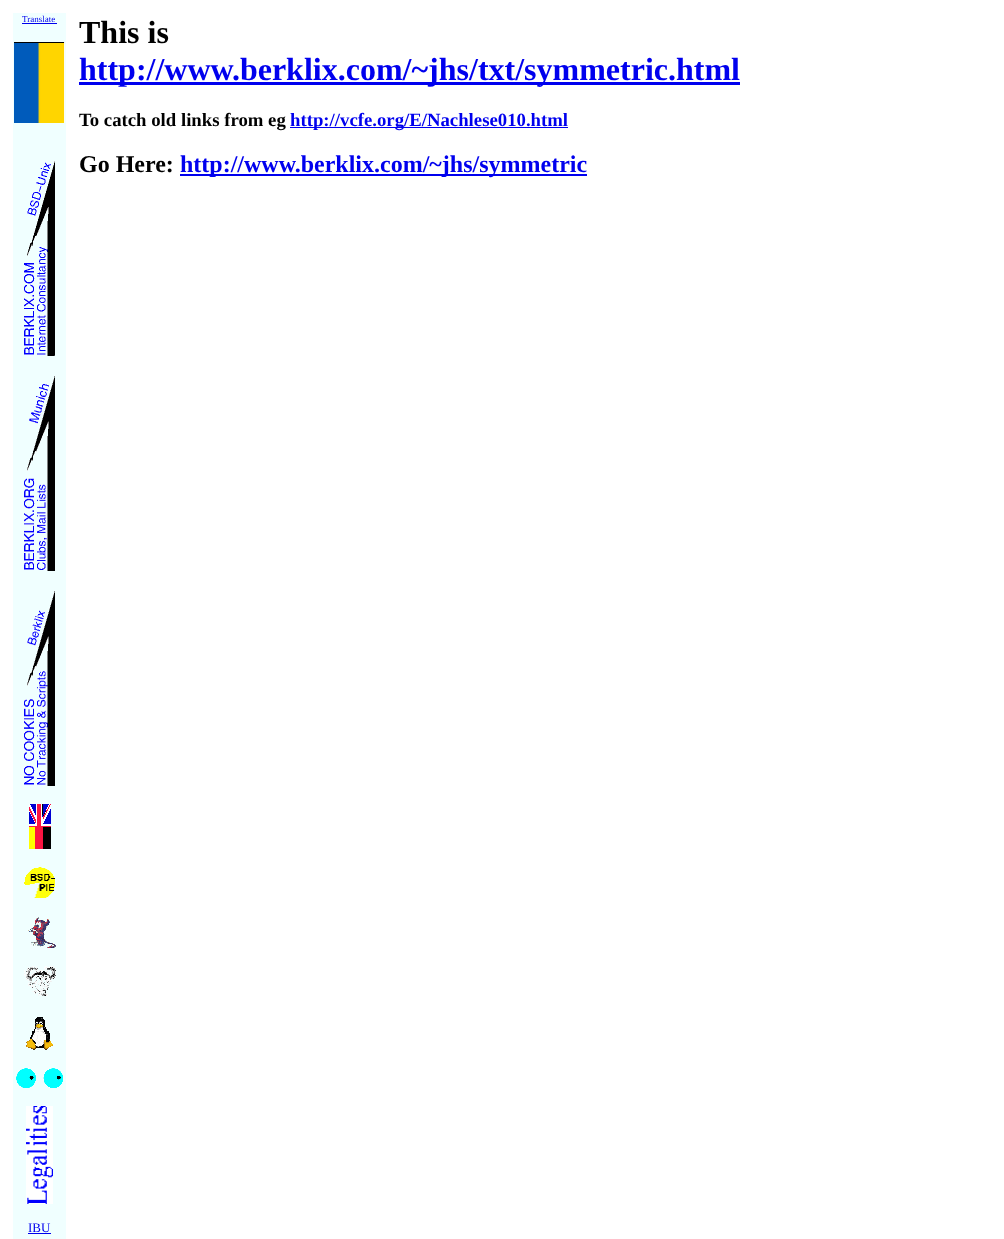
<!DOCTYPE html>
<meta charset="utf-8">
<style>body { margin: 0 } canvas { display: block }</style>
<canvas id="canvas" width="1004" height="1239"></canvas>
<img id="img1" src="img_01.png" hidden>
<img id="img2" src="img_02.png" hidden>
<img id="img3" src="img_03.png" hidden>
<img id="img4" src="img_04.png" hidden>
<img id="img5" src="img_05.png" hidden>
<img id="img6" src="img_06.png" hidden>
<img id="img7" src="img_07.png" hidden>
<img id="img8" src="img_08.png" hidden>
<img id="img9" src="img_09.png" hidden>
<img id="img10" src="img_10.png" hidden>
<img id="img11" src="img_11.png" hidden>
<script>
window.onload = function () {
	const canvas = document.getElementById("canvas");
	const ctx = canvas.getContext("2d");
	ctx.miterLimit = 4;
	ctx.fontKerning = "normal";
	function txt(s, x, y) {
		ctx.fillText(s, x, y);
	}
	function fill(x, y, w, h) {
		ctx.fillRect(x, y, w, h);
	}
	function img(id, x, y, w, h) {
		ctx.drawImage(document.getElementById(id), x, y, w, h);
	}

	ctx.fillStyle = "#FFFFFF";
	fill(0, 0, 1004, 1239);
	ctx.fillStyle = "#F0FFFF";
	fill(13, 13, 53, 1226);
	ctx.fillStyle = "#0000EE";
	fill(22, 23, 35, 1);
	img("img1", 14, 42, 51, 81);
	img("img2", 24, 161, 31, 195);
	img("img3", 24, 376, 31, 195);
	img("img4", 24, 591, 31, 195);
	img("img5", 29, 804, 22, 45);
	img("img6", 24, 867, 31, 31);
	img("img7", 28, 917, 28, 31);
	img("img8", 24, 966, 32, 30);
	img("img9", 26, 1017, 27, 33);
	img("img10", 16, 1068, 47, 20);
	img("img11", 26, 1106, 27, 98);
	fill(28, 1233, 23, 1);
	fill(79, 82, 661, 3);
	fill(290, 127, 278, 1);
	fill(180, 174, 407, 2);
	ctx.font = "9px Liberation Serif";
	txt("Translate", 22, 22);
	ctx.font = "13px Liberation Serif";
	txt("IBU", 28, 1232);
	ctx.font = "bold 32px Liberation Serif";
	ctx.fillStyle = "#000000";
	txt("This is", 79, 43);
	ctx.fillStyle = "#0000EE";
	txt("http://www.berklix.com/~jhs/txt/symmetric.html", 79, 80);
	ctx.font = "bold 18.75px Liberation Serif";
	ctx.fillStyle = "#000000";
	txt("To catch old links from eg", 79, 126);
	ctx.fillStyle = "#0000EE";
	txt("http://vcfe.org/E/Nachlese010.html", 290, 126);
	ctx.font = "bold 24px Liberation Serif";
	ctx.fillStyle = "#000000";
	txt("Go Here:", 79, 172);
	ctx.fillStyle = "#0000EE";
	txt("http://www.berklix.com/~jhs/symmetric", 180, 172);
};
</script>
